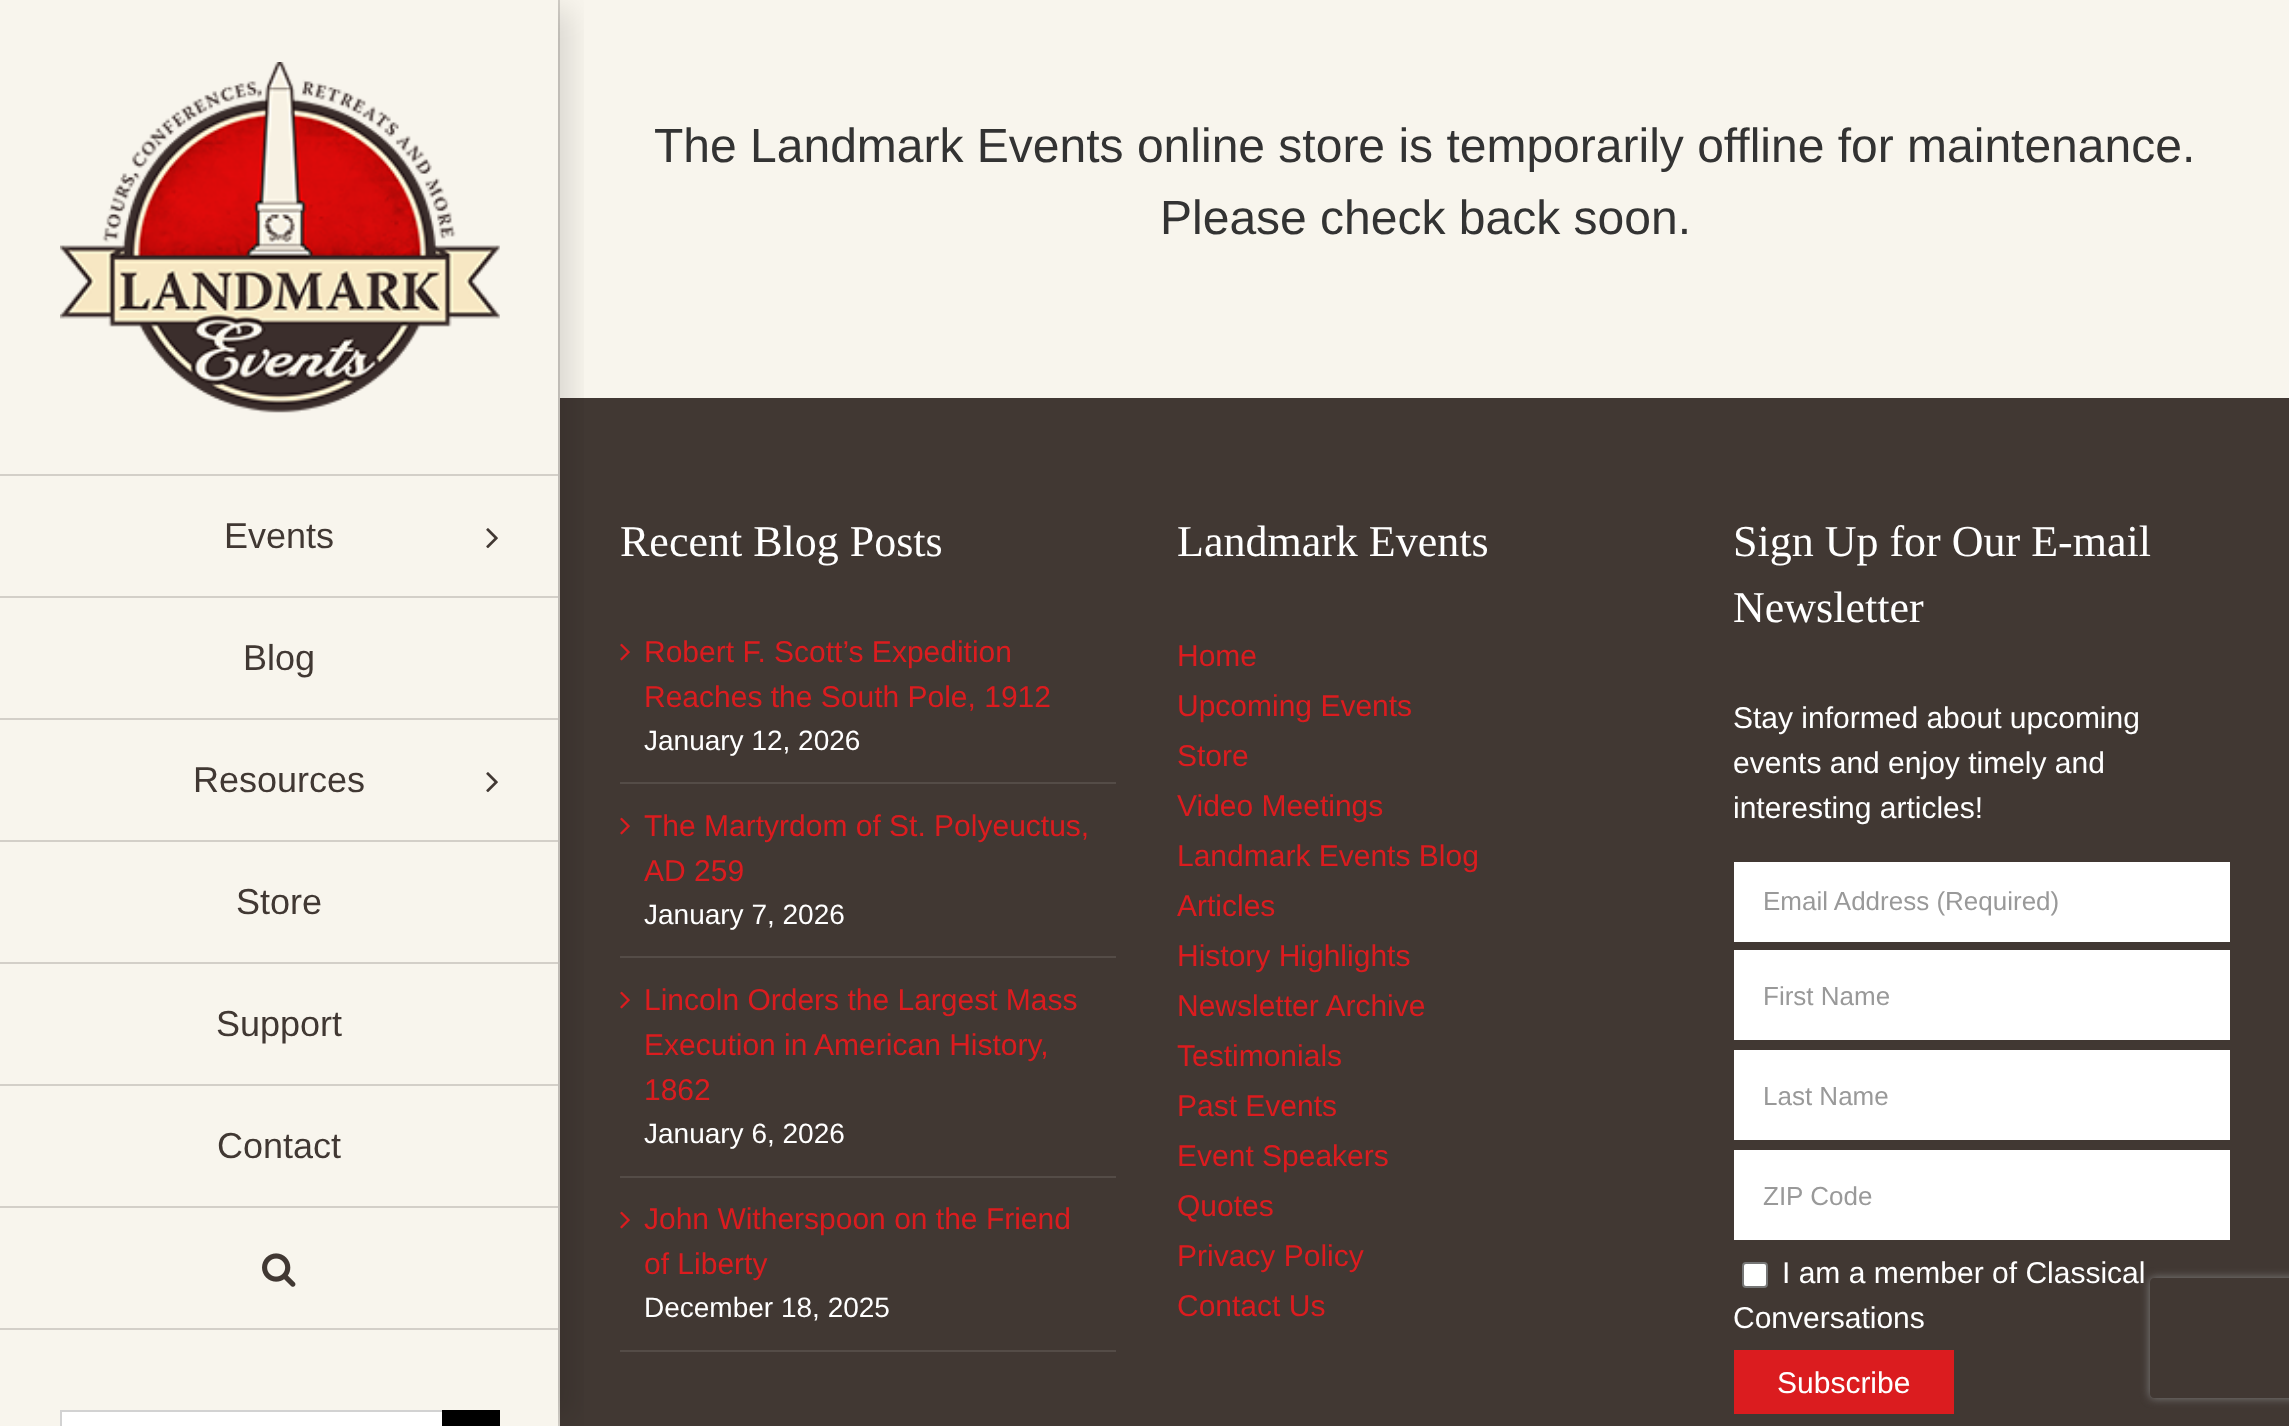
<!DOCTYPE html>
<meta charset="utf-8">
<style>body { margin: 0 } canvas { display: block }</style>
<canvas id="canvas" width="2289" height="1426"></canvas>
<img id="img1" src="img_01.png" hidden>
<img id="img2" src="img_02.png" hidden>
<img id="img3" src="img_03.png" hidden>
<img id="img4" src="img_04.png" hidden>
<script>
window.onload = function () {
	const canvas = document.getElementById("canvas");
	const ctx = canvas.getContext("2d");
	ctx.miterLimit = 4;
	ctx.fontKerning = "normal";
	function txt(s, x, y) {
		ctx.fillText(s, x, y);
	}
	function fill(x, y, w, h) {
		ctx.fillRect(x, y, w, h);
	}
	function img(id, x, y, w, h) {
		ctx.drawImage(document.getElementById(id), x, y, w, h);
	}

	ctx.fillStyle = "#F8F5ED";
	fill(0, 0, 2289, 1426);
	ctx.fillStyle = "#D3CFC8";
	fill(558, 0, 2, 1426);
	ctx.fillStyle = "#413833";
	fill(560, 398, 1729, 1028);
	ctx.save();
	ctx.beginPath();
	ctx.rect(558, 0, 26, 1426);
	ctx.clip();
	ctx.fillStyle = "rgba(0, 0, 0, 0.14)";
	ctx.filter = "blur(15px)";
	ctx.beginPath();
	ctx.rect(538, 10, 30, 1406);
	ctx.fill();
	ctx.filter = "none";
	ctx.restore();
	img("img1", 60, 62, 440, 351);
	ctx.fillStyle = "#D3CFC8";
	fill(0, 474, 558, 2);
	fill(0, 596, 558, 2);
	img("img2", 486, 528, 12, 21);
	fill(0, 718, 558, 2);
	fill(0, 840, 558, 2);
	img("img2", 486, 772, 12, 21);
	fill(0, 962, 558, 2);
	fill(0, 1084, 558, 2);
	fill(0, 1206, 558, 2);
	fill(0, 1328, 558, 2);
	img("img3", 262, 1253, 34, 34);
	ctx.fillStyle = "#FFFFFF";
	fill(62, 1412, 380, 14);
	ctx.fillStyle = "#D2D2D2";
	fill(60, 1410, 382, 2);
	fill(60, 1410, 2, 16);
	ctx.fillStyle = "#000000";
	fill(442, 1410, 58, 16);
	ctx.fillStyle = "#544C47";
	fill(620, 782, 496, 2);
	img("img4", 620, 643, 10, 18);
	fill(620, 956, 496, 2);
	img("img4", 620, 817, 10, 18);
	fill(620, 1176, 496, 2);
	img("img4", 620, 991, 10, 18);
	fill(620, 1350, 496, 2);
	img("img4", 620, 1211, 10, 18);
	ctx.fillStyle = "#FFFFFF";
	fill(1734, 862, 496, 80);
	fill(1734, 950, 496, 90);
	fill(1734, 1050, 496, 90);
	fill(1734, 1150, 496, 90);
	ctx.beginPath();
	ctx.roundRect(1743, 1263, 24, 24, 3);
	ctx.fill();
	ctx.strokeStyle = "#767676";
	ctx.lineWidth = 2;
	ctx.stroke();
	ctx.fillStyle = "#DB1C1F";
	fill(1734, 1350, 220, 64);
	ctx.save();
	ctx.beginPath();
	ctx.moveTo(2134, 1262);
	ctx.lineTo(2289, 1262);
	ctx.lineTo(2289, 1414);
	ctx.lineTo(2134, 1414);
	ctx.closePath();
	ctx.moveTo(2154, 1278);
	ctx.lineTo(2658, 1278);
	ctx.bezierCurveTo(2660, 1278, 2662, 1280, 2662, 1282);
	ctx.lineTo(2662, 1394);
	ctx.bezierCurveTo(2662, 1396, 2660, 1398, 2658, 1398);
	ctx.lineTo(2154, 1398);
	ctx.bezierCurveTo(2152, 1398, 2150, 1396, 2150, 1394);
	ctx.lineTo(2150, 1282);
	ctx.bezierCurveTo(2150, 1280, 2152, 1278, 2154, 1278);
	ctx.closePath();
	ctx.clip("evenodd");
	ctx.fillStyle = "#808080";
	ctx.filter = "blur(5px)";
	ctx.beginPath();
	ctx.roundRect(2150, 1278, 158, 120, 4);
	ctx.fill();
	ctx.filter = "none";
	ctx.restore();
	ctx.font = "48px Liberation Sans";
	ctx.fillStyle = "#333333";
	txt("The Landmark Events online store is temporarily offline for maintenance.", 654, 162);
	txt("Please check back soon.", 1160, 234);
	ctx.font = "36px Liberation Sans";
	ctx.fillStyle = "#413833";
	txt("Events", 224, 548);
	txt("Blog", 243, 670);
	txt("Resources", 193, 792);
	txt("Store", 236, 914);
	txt("Support", 216, 1036);
	txt("Contact", 217, 1158);
	ctx.font = "44px Liberation Serif";
	ctx.fillStyle = "#FFFFFF";
	txt("Recent Blog Posts", 620, 556);
	ctx.font = "30px Liberation Sans";
	ctx.fillStyle = "#DB1C1F";
	txt("Robert F. Scott’s Expedition", 644, 662);
	txt("Reaches the South Pole, 1912", 644, 707);
	ctx.font = "28px Liberation Sans";
	ctx.fillStyle = "#FFFFFF";
	txt("January 12, 2026", 644, 750);
	ctx.font = "30px Liberation Sans";
	ctx.fillStyle = "#DB1C1F";
	txt("The Martyrdom of St. Polyeuctus,", 644, 836);
	txt("AD 259", 644, 881);
	ctx.font = "28px Liberation Sans";
	ctx.fillStyle = "#FFFFFF";
	txt("January 7, 2026", 644, 924);
	ctx.font = "30px Liberation Sans";
	ctx.fillStyle = "#DB1C1F";
	txt("Lincoln Orders the Largest Mass", 644, 1010);
	txt("Execution in American History,", 644, 1055);
	txt("1862", 644, 1100);
	ctx.font = "28px Liberation Sans";
	ctx.fillStyle = "#FFFFFF";
	txt("January 6, 2026", 644, 1143);
	ctx.font = "30px Liberation Sans";
	ctx.fillStyle = "#DB1C1F";
	txt("John Witherspoon on the Friend", 644, 1229);
	txt("of Liberty", 644, 1274);
	ctx.font = "28px Liberation Sans";
	ctx.fillStyle = "#FFFFFF";
	txt("December 18, 2025", 644, 1317);
	ctx.font = "44px Liberation Serif";
	txt("Landmark Events", 1177, 556);
	ctx.font = "30px Liberation Sans";
	ctx.fillStyle = "#DB1C1F";
	txt("Home", 1177, 666);
	txt("Upcoming Events", 1177, 716);
	txt("Store", 1177, 766);
	txt("Video Meetings", 1177, 816);
	txt("Landmark Events Blog", 1177, 866);
	txt("Articles", 1177, 916);
	txt("History Highlights", 1177, 966);
	txt("Newsletter Archive", 1177, 1016);
	txt("Testimonials", 1177, 1066);
	txt("Past Events", 1177, 1116);
	txt("Event Speakers", 1177, 1166);
	txt("Quotes", 1177, 1216);
	txt("Privacy Policy", 1177, 1266);
	txt("Contact Us", 1177, 1316);
	ctx.font = "44px Liberation Serif";
	ctx.fillStyle = "#FFFFFF";
	txt("Sign Up for Our E-mail", 1733, 556);
	txt("Newsletter", 1733, 622);
	ctx.font = "30px Liberation Sans";
	txt("Stay informed about upcoming", 1733, 728);
	txt("events and enjoy timely and", 1733, 773);
	txt("interesting articles!", 1733, 818);
	ctx.font = "26px Liberation Sans";
	ctx.fillStyle = "#999999";
	txt("Email Address (Required)", 1763, 910);
	txt("First Name", 1763, 1005);
	txt("Last Name", 1763, 1105);
	txt("ZIP Code", 1763, 1205);
	ctx.font = "30px Liberation Sans";
	ctx.fillStyle = "#FFFFFF";
	txt("I am a member of Classical", 1782, 1283);
	txt("Conversations", 1733, 1328);
	txt("Subscribe", 1777, 1393);
};
</script>
